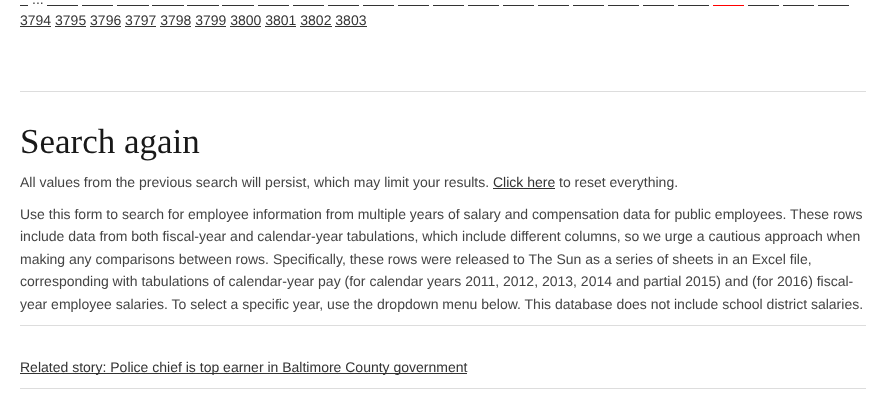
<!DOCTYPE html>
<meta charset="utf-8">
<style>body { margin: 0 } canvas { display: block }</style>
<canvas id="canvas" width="886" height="412"></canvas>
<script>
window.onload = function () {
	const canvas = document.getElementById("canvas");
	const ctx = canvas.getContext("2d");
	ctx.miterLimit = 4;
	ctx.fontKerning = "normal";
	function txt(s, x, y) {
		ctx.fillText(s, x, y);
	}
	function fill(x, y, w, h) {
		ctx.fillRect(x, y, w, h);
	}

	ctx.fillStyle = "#FFFFFF";
	fill(0, 0, 886, 412);
	ctx.fillStyle = "#333333";
	fill(20, 5, 8, 1);
	fill(47, 5, 31, 1);
	fill(82, 5, 31, 1);
	fill(117, 5, 32, 1);
	fill(152, 5, 32, 1);
	fill(187, 5, 32, 1);
	fill(222, 5, 32, 1);
	fill(258, 5, 31, 1);
	fill(293, 5, 31, 1);
	fill(328, 5, 31, 1);
	fill(363, 5, 31, 1);
	fill(398, 5, 31, 1);
	fill(433, 5, 31, 1);
	fill(468, 5, 31, 1);
	fill(503, 5, 31, 1);
	fill(538, 5, 31, 1);
	fill(573, 5, 31, 1);
	fill(608, 5, 31, 1);
	fill(643, 5, 31, 1);
	fill(678, 5, 31, 1);
	ctx.fillStyle = "#FF0000";
	fill(713, 5, 31, 1);
	ctx.fillStyle = "#333333";
	fill(748, 5, 31, 1);
	fill(783, 5, 31, 1);
	fill(818, 5, 31, 1);
	fill(20, 26, 31, 1);
	fill(55, 26, 31, 1);
	fill(90, 26, 31, 1);
	fill(125, 26, 31, 1);
	fill(160, 26, 31, 1);
	fill(195, 26, 31, 1);
	fill(230, 26, 31, 1);
	fill(265, 26, 31, 1);
	fill(300, 26, 32, 1);
	fill(335, 26, 32, 1);
	ctx.fillStyle = "#DDDDDD";
	fill(20, 91, 846, 1);
	ctx.fillStyle = "#333333";
	fill(493, 188, 62, 1);
	ctx.fillStyle = "#DDDDDD";
	fill(20, 325, 846, 1);
	ctx.fillStyle = "#333333";
	fill(20, 373, 447, 1);
	ctx.fillStyle = "#DDDDDD";
	fill(20, 388, 846, 1);
	ctx.font = "14px Liberation Sans";
	ctx.fillStyle = "#444444";
	txt("...", 32, 4);
	ctx.fillStyle = "#333333";
	txt("3794 3795 3796 3797 3798 3799 3800 3801 3802 3803", 20, 25);
	ctx.font = "35px Liberation Serif";
	ctx.fillStyle = "#181818";
	txt("Search again", 20, 153);
	ctx.font = "14px Liberation Sans";
	ctx.fillStyle = "#444444";
	txt("All values from the previous search will persist, which may limit your results.", 20, 187);
	ctx.fillStyle = "#333333";
	txt("Click here", 493, 187);
	ctx.fillStyle = "#444444";
	txt("to reset everything.", 559, 187);
	txt("Use this form to search for employee information from multiple years of salary and compensation data for public employees. These rows", 20, 219);
	txt("include data from both fiscal-year and calendar-year tabulations, which include different columns, so we urge a cautious approach when", 20, 241);
	txt("making any comparisons between rows. Specifically, these rows were released to The Sun as a series of sheets in an Excel file,", 20, 264);
	txt("corresponding with tabulations of calendar-year pay (for calendar years 2011, 2012, 2013, 2014 and partial 2015) and (for 2016) fiscal-", 20, 286);
	txt("year employee salaries. To select a specific year, use the dropdown menu below. This database does not include school district salaries.", 20, 309);
	ctx.fillStyle = "#333333";
	txt("Related story: Police chief is top earner in Baltimore County government", 20, 372);
};
</script>
